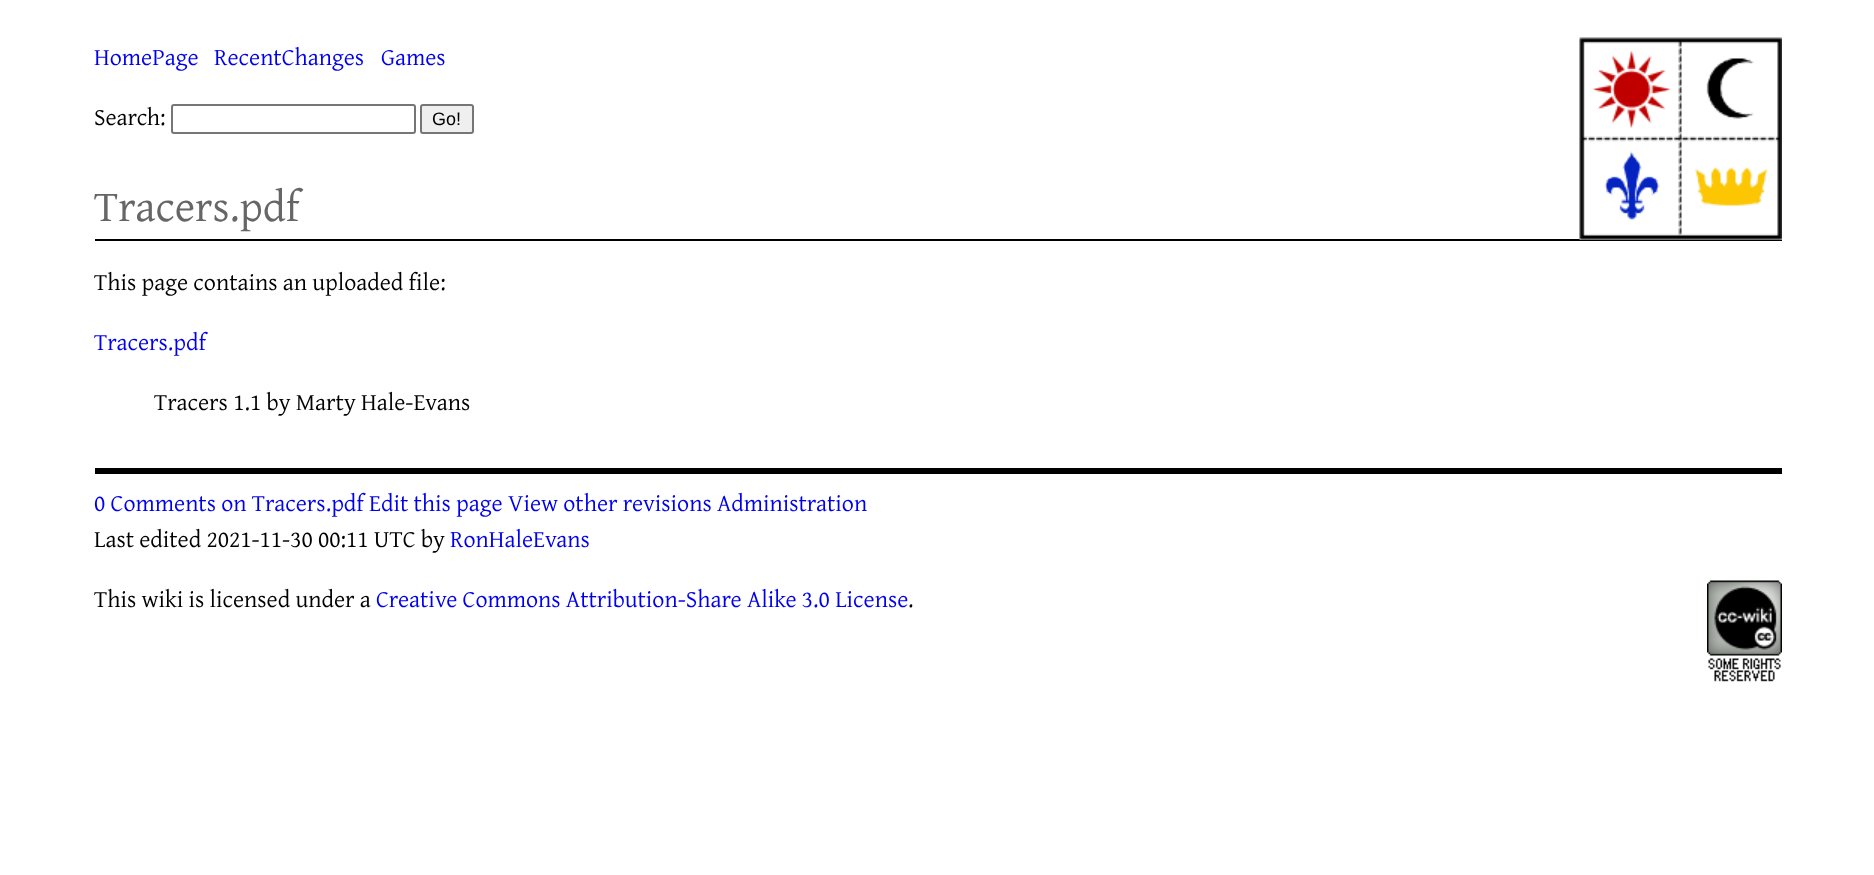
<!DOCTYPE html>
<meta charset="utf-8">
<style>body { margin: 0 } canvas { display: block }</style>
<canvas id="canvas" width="1874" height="875"></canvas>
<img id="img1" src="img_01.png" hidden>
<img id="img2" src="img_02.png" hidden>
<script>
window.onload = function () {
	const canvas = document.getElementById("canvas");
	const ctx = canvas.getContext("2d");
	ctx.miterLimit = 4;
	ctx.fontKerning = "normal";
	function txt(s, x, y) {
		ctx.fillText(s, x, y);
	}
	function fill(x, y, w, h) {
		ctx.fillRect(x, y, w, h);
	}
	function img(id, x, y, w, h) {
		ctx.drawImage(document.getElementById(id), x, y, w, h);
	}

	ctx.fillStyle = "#FFFFFF";
	fill(0, 0, 1874, 875);
	ctx.beginPath();
	ctx.roundRect(172, 105, 243, 28, 2);
	ctx.strokeStyle = "#767676";
	ctx.lineWidth = 2;
	ctx.stroke();
	ctx.fillStyle = "#EFEFEF";
	ctx.beginPath();
	ctx.roundRect(421, 105, 52, 28, 2);
	ctx.fill();
	ctx.stroke();
	ctx.fillStyle = "#000000";
	fill(95, 239, 1687, 2);
	img("img1", 1579, 37, 203, 203);
	fill(95, 468, 1687, 6);
	img("img2", 1707, 580, 75, 102);
	ctx.font = "24px Gentium Plus";
	ctx.fillStyle = "#0000EE";
	txt("HomePage", 94, 65);
	txt("RecentChanges", 214, 65);
	txt("Games", 381, 65);
	ctx.fillStyle = "#000000";
	txt("Search:", 94, 125);
	ctx.font = "18px Liberation Sans";
	txt("Go!", 432, 125);
	ctx.font = "44px Gentium Plus";
	ctx.fillStyle = "#666666";
	txt("Tracers.pdf", 94, 221);
	ctx.font = "24px Gentium Plus";
	ctx.fillStyle = "#000000";
	txt("This page contains an uploaded file:", 94, 290);
	ctx.fillStyle = "#0000EE";
	txt("Tracers.pdf", 94, 350);
	ctx.fillStyle = "#000000";
	txt("Tracers 1.1 by Marty Hale-Evans", 154, 410);
	ctx.fillStyle = "#0000EE";
	txt("0 Comments on Tracers.pdf Edit this page View other revisions Administration", 94, 511);
	ctx.fillStyle = "#000000";
	txt("Last edited 2021-11-30 00:11 UTC by", 94, 547);
	ctx.fillStyle = "#0000EE";
	txt("RonHaleEvans", 450, 547);
	ctx.fillStyle = "#000000";
	txt("This wiki is licensed under a", 94, 607);
	ctx.fillStyle = "#0000EE";
	txt("Creative Commons Attribution-Share Alike 3.0 License", 376, 607);
	ctx.fillStyle = "#000000";
	txt(".", 908, 607);
};
</script>
